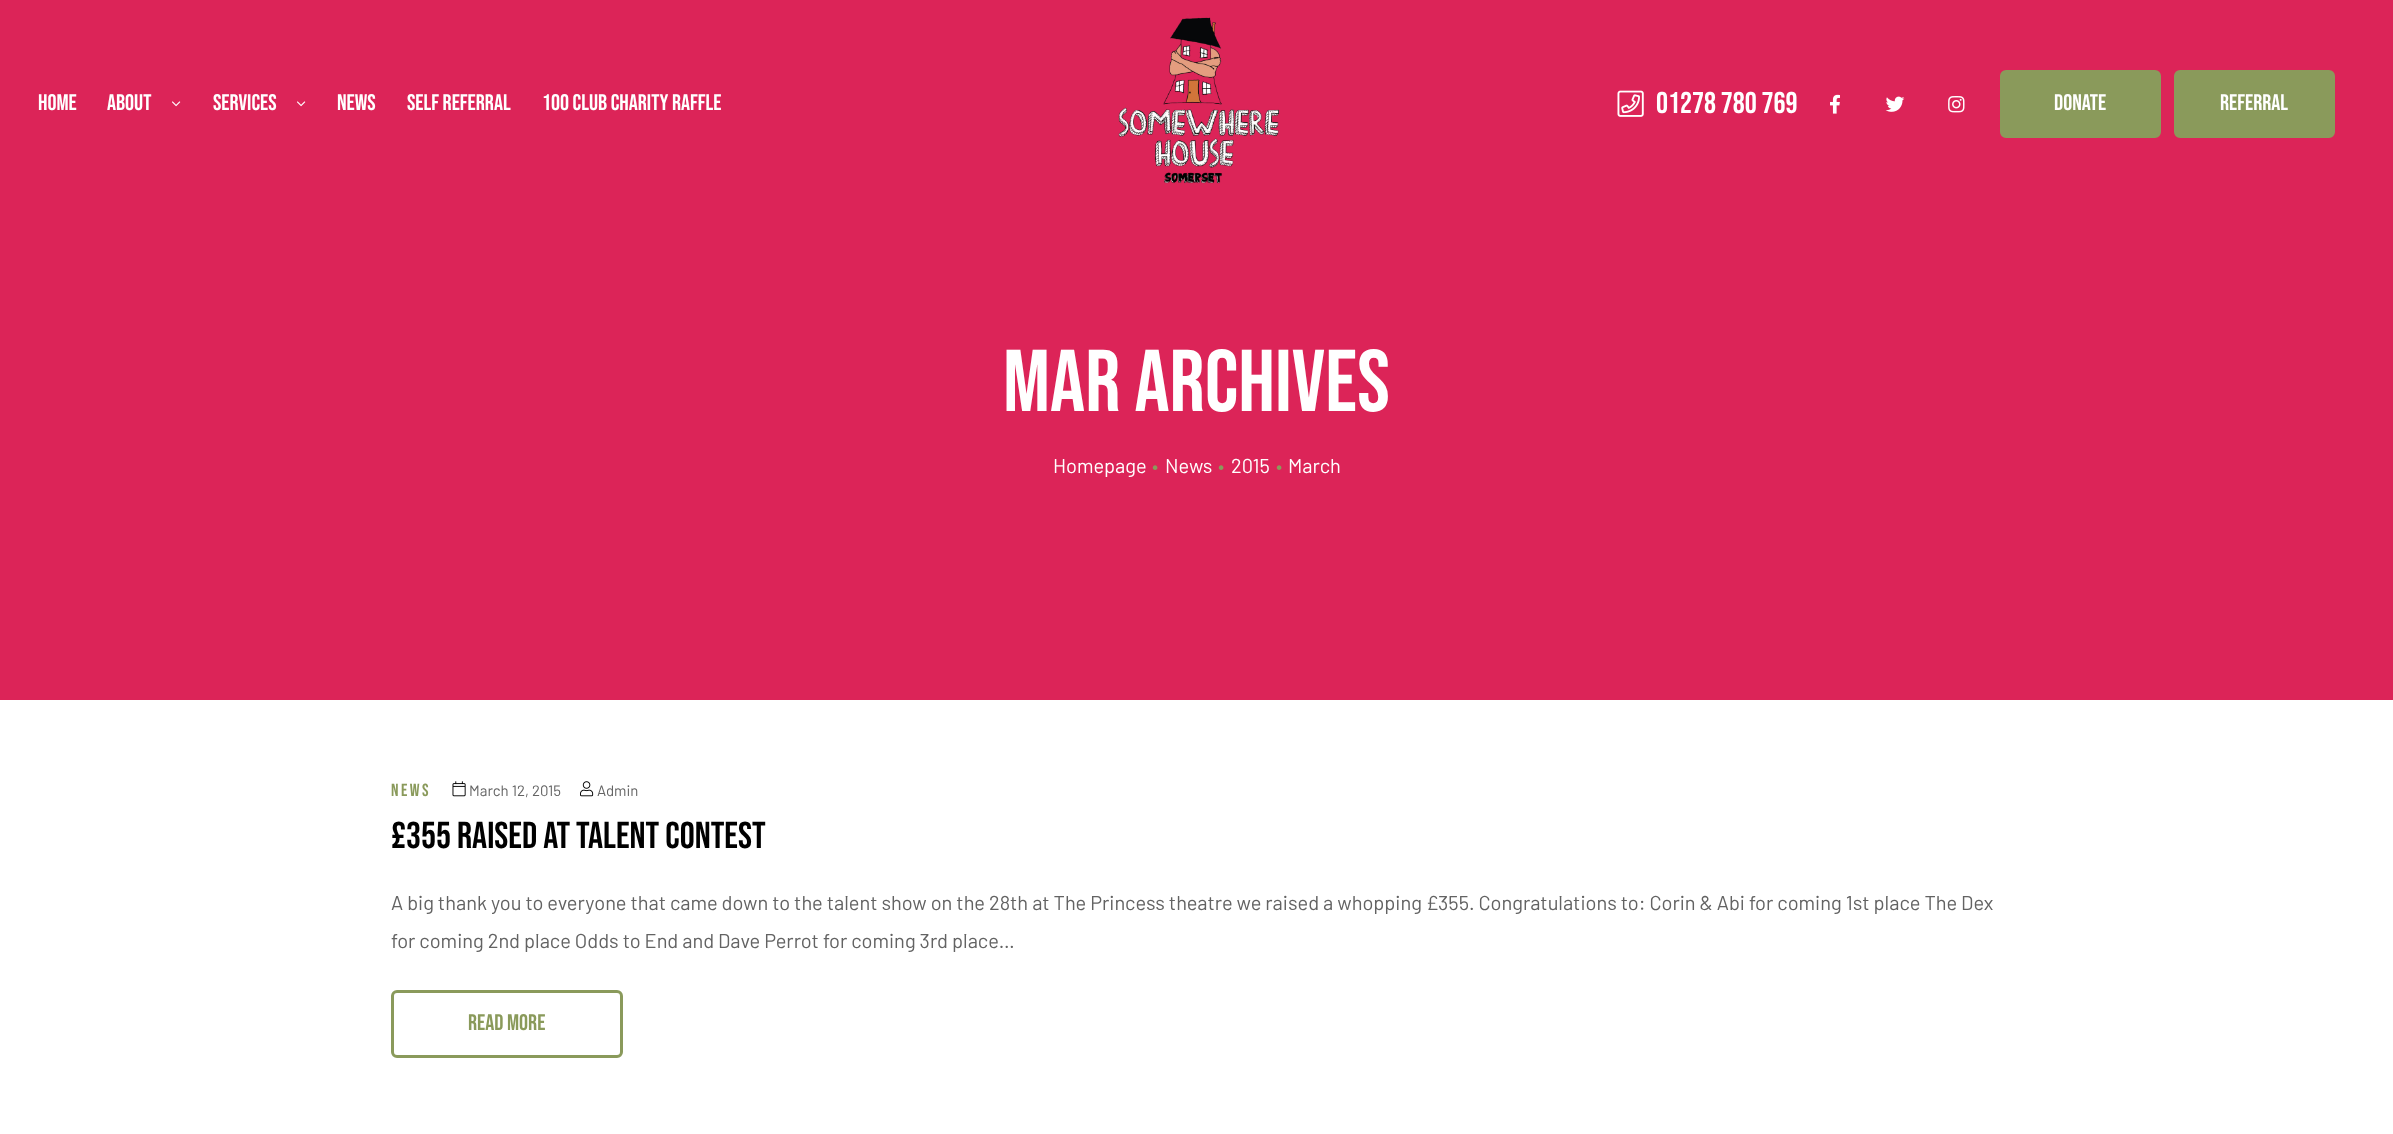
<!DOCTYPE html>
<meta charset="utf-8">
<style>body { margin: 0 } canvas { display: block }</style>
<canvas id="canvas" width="2393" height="1134"></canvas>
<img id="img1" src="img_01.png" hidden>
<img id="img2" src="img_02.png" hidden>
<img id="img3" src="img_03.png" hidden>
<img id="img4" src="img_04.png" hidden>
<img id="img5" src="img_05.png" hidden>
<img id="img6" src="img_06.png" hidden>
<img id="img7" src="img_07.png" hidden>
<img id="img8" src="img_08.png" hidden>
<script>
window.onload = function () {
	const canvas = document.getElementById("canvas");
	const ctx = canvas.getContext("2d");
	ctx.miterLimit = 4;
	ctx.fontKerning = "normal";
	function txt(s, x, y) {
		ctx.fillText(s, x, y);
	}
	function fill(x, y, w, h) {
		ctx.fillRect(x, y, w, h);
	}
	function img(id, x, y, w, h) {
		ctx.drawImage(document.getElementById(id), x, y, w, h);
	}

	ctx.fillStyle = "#FFFFFF";
	fill(0, 0, 2393, 1134);
	ctx.fillStyle = "#DC2458";
	fill(0, 0, 2393, 700);
	img("img1", 172, 101, 9, 6);
	img("img1", 297, 101, 9, 6);
	img("img2", 1118, 14, 162, 170);
	img("img3", 1617, 90, 27, 27);
	img("img4", 1830, 94, 10, 20);
	img("img5", 1885, 96, 20, 16);
	img("img6", 1948, 96, 17, 17);
	ctx.fillStyle = "#8A9A5B";
	ctx.beginPath();
	ctx.roundRect(2001.5, 71.5, 158, 65, 4.5);
	ctx.fill();
	ctx.strokeStyle = "#8A9A5B";
	ctx.lineWidth = 3;
	ctx.stroke();
	ctx.beginPath();
	ctx.roundRect(2175.5, 71.5, 158, 65, 4.5);
	ctx.fill();
	ctx.stroke();
	img("img7", 452, 781, 14, 16);
	img("img8", 580, 781, 14, 16);
	ctx.beginPath();
	ctx.roundRect(392.5, 991.5, 229, 65, 4.5);
	ctx.stroke();
	ctx.font = "22.5px Bebas Neue";
	ctx.fillStyle = "#FFFFFF";
	txt("Home", 38, 110);
	txt("About", 107, 110);
	txt("Services", 213, 110);
	txt("News", 337, 110);
	txt("Self Referral", 407, 110);
	txt("100 Club Charity Raffle", 542, 110);
	ctx.font = "30px Bebas Neue";
	txt("01278 780 769", 1656, 113);
	ctx.font = "22.5px Bebas Neue";
	txt("DONATE", 2054, 110);
	txt("REFERRAL", 2220, 110);
	ctx.font = "87.5px Bebas Neue";
	txt("Mar Archives", 1003, 411);
	ctx.font = "20px Barlow";
	txt("Homepage", 1053, 473);
	ctx.fillStyle = "#8A9A5B";
	txt("•", 1152, 473);
	ctx.fillStyle = "#FFFFFF";
	txt("News", 1165, 473);
	ctx.fillStyle = "#8A9A5B";
	txt("•", 1218, 473);
	ctx.fillStyle = "#FFFFFF";
	txt("2015", 1231, 473);
	ctx.fillStyle = "#8A9A5B";
	txt("•", 1276, 473);
	ctx.fillStyle = "#FFFFFF";
	txt("March", 1288, 473);
	ctx.letterSpacing = "2.5px";
	ctx.font = "17.5px Bebas Neue";
	ctx.fillStyle = "#8A9A5B";
	txt("NEWS", 391, 796);
	ctx.letterSpacing = "0px";
	ctx.font = "15px Barlow";
	ctx.fillStyle = "#636363";
	txt("March 12, 2015", 469, 796);
	txt("Admin", 597, 796);
	ctx.font = "37.5px Bebas Neue";
	ctx.fillStyle = "#000000";
	txt("£355 Raised at talent contest", 391, 848);
	ctx.font = "20px Barlow";
	ctx.fillStyle = "#636363";
	txt("A big thank you to everyone that came down to the talent show on the 28th at The Princess theatre we raised a whopping £355. Congratulations to: Corin & Abi for coming 1st place The Dex", 391, 910);
	txt("for coming 2nd place Odds to End and Dave Perrot for coming 3rd place…", 391, 948);
	ctx.font = "22.5px Bebas Neue";
	ctx.fillStyle = "#8A9A5B";
	txt("READ MORE", 468, 1030);
};
</script>
